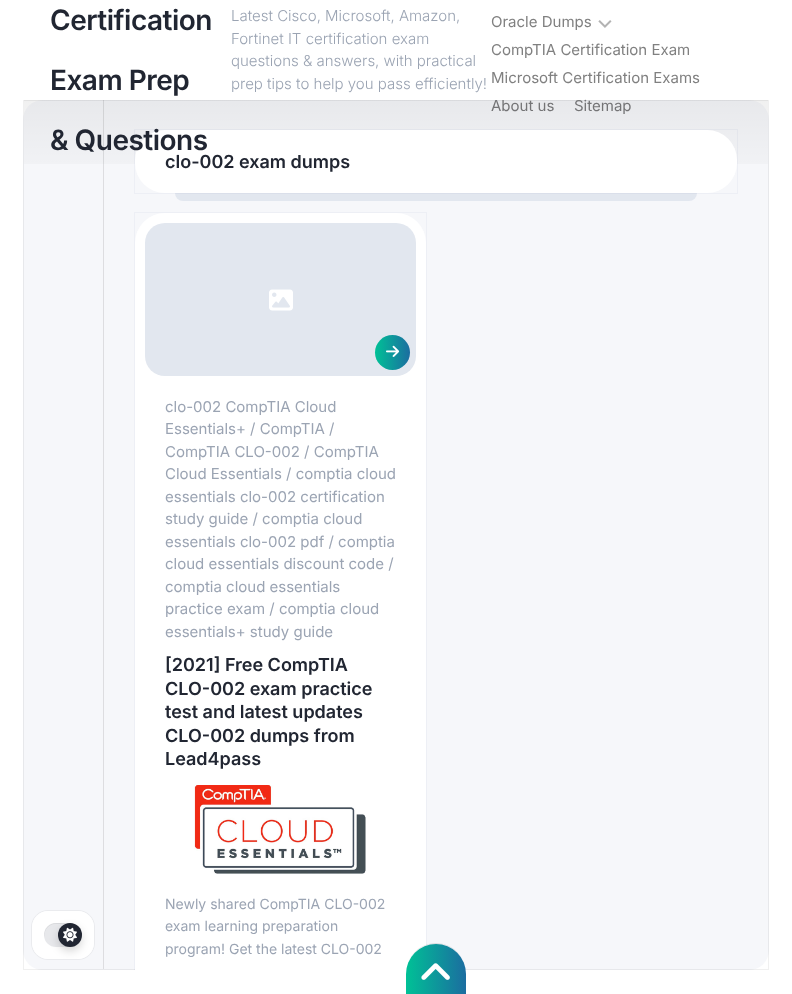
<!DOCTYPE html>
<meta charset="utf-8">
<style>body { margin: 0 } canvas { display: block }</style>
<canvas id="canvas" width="792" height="994"></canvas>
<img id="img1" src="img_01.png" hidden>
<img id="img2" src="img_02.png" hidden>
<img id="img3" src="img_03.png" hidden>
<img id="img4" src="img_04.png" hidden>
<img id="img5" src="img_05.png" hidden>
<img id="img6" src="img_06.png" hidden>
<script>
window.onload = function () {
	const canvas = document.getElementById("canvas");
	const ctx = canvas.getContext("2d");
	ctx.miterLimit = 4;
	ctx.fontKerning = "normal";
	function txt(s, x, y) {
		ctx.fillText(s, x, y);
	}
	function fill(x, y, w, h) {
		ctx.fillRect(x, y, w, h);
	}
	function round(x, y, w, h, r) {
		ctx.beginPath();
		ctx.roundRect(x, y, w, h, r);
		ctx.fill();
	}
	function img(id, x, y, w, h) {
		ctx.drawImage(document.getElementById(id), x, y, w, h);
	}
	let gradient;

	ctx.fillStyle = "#FFFFFF";
	fill(0, 0, 792, 994);
	img("img1", 598, 20, 14, 8);
	ctx.fillStyle = "#F6F7FA";
	round(23, 100, 746, 870, 20);
	ctx.strokeStyle = "rgba(0, 0, 0, 0.06)";
	ctx.strokeRect(23.5, 100.5, 745, 869);
	gradient = ctx.createLinearGradient(396, 200, 396, 100);
	gradient.addColorStop(0, "rgba(0, 0, 0, 0)");
	gradient.addColorStop(1, "rgba(0, 0, 0, 0.06)");
	ctx.fillStyle = gradient;
	fill(24, 100, 744, 64);
	ctx.fillStyle = "rgba(0, 0, 0, 0.1)";
	fill(103, 100, 1, 869);
	ctx.beginPath();
	ctx.roundRect(31.5, 910.5, 63, 49, 16.5);
	ctx.strokeStyle = "#EAEBEE";
	ctx.stroke();
	ctx.fillStyle = "#FFFFFF";
	round(32, 911, 62, 48, 16);
	ctx.fillStyle = "#E7E8EB";
	round(44, 923, 38, 24, 12);
	ctx.fillStyle = "rgba(0, 0, 0, 0.06)";
	ctx.beginPath();
	ctx.moveTo(56, 924);
	ctx.bezierCurveTo(64.5, 924, 77.5, 921.5, 81.5, 931);
	ctx.bezierCurveTo(78.5, 922.5, 70.5, 923, 63, 923);
	ctx.lineTo(53.5, 923);
	ctx.bezierCurveTo(47, 924.5, 42.5, 931.5, 44.5, 938);
	ctx.bezierCurveTo(43.5, 931.5, 47.5, 924, 56, 924);
	ctx.closePath();
	ctx.fill();
	ctx.fillStyle = "rgba(0, 0, 0, 0.16)";
	ctx.filter = "blur(4px)";
	ctx.beginPath();
	ctx.roundRect(58, 927, 24, 24, 12);
	ctx.fill();
	ctx.filter = "none";
	ctx.fillStyle = "#212632";
	ctx.beginPath();
	ctx.arc(70, 935, 12, 0, Math.PI * 2);
	ctx.fill();
	img("img2", 63, 927, 14, 15);
	ctx.fillStyle = "#E2E7EF";
	ctx.beginPath();
	ctx.roundRect(175, 193, 522, 8, [0, 0, 8, 8]);
	ctx.fill();
	ctx.strokeStyle = "rgba(14, 63, 126, 0.04)";
	ctx.strokeRect(134.5, 129.5, 603, 64);
	ctx.fillStyle = "#FFFFFF";
	round(135, 130, 602, 63, 30);
	ctx.strokeRect(134.5, 212.5, 292, 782);
	round(135, 213, 291, 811, 30);
	ctx.fillStyle = "#E2E7EF";
	round(145, 223, 271, 153, 20);
	img("img3", 269, 289, 24, 22);
	gradient = ctx.createLinearGradient(375, 353, 410, 353);
	gradient.addColorStop(0, "#00C196");
	gradient.addColorStop(1, "#1B6DA0");
	ctx.fillStyle = gradient;
	ctx.beginPath();
	ctx.arc(392.5, 352.5, 17.5, 0, Math.PI * 2);
	ctx.fill();
	img("img4", 386, 345, 14, 12);
	img("img5", 194, 785, 172, 89);
	ctx.fillStyle = "#FFFFFF";
	fill(134, 970, 293, 24);
	ctx.fillStyle = "rgba(0, 0, 0, 0.1)";
	ctx.beginPath();
	ctx.moveTo(436, 943);
	ctx.bezierCurveTo(419, 943, 406, 957, 406, 974);
	ctx.bezierCurveTo(406, 957, 419, 944, 436, 944);
	ctx.bezierCurveTo(453, 944, 466, 957, 466, 974);
	ctx.bezierCurveTo(466, 957, 453, 943, 436, 943);
	ctx.closePath();
	ctx.fill();
	gradient = ctx.createLinearGradient(406, 969, 466, 969);
	gradient.addColorStop(0, "#00C196");
	gradient.addColorStop(1, "#1B6DA0");
	ctx.fillStyle = gradient;
	ctx.beginPath();
	ctx.roundRect(406, 944, 60, 50, [30, 30, 0, 0]);
	ctx.fill();
	img("img6", 421, 963, 29, 17);
	ctx.letterSpacing = "-0.5px";
	ctx.font = "600 28px Inter";
	ctx.fillStyle = "#212632";
	txt("Certification", 50, 30);
	txt("Exam Prep", 50, 90);
	txt("& Questions", 50, 150);
	ctx.letterSpacing = "0px";
	ctx.font = "300 15px Inter";
	ctx.fillStyle = "#9BA4B3";
	txt("Latest Cisco, Microsoft, Amazon,", 231, 21);
	txt("Fortinet IT certification exam", 231, 44);
	txt("questions & answers, with practical", 231, 66);
	txt("prep tips to help you pass efficiently!", 231, 89);
	ctx.font = "15px Inter";
	ctx.fillStyle = "#808080";
	txt("Oracle Dumps", 491, 27);
	txt("CompTIA Certification Exam", 491, 55);
	txt("Microsoft Certification Exams", 491, 83);
	ctx.fillStyle = "#747476";
	txt("About us", 491, 111);
	txt("Sitemap", 574, 111);
	ctx.font = "600 18px Inter";
	ctx.fillStyle = "#212632";
	txt("clo-002 exam dumps", 165, 168);
	ctx.font = "15px Inter";
	ctx.fillStyle = "#9BA4B3";
	txt("clo-002 CompTIA Cloud", 165, 412);
	txt("Essentials+ / CompTIA /", 165, 434);
	txt("CompTIA CLO-002 / CompTIA", 165, 457);
	txt("Cloud Essentials / comptia cloud", 165, 479);
	txt("essentials clo-002 certification", 165, 502);
	txt("study guide / comptia cloud", 165, 524);
	txt("essentials clo-002 pdf / comptia", 165, 547);
	txt("cloud essentials discount code /", 165, 569);
	txt("comptia cloud essentials", 165, 592);
	txt("practice exam / comptia cloud", 165, 614);
	txt("essentials+ study guide", 165, 637);
	ctx.font = "600 18px Inter";
	ctx.fillStyle = "#212632";
	txt("[2021] Free CompTIA", 165, 671);
	txt("CLO-002 exam practice", 165, 695);
	txt("test and latest updates", 165, 718);
	txt("CLO-002 dumps from", 165, 742);
	txt("Lead4pass", 165, 765);
	ctx.font = "14px Inter";
	ctx.fillStyle = "#9BA4B3";
	txt("Newly shared CompTIA CLO-002", 165, 909);
	txt("exam learning preparation", 165, 931);
	txt("program! Get the latest CLO-002", 165, 954);
};
</script>
